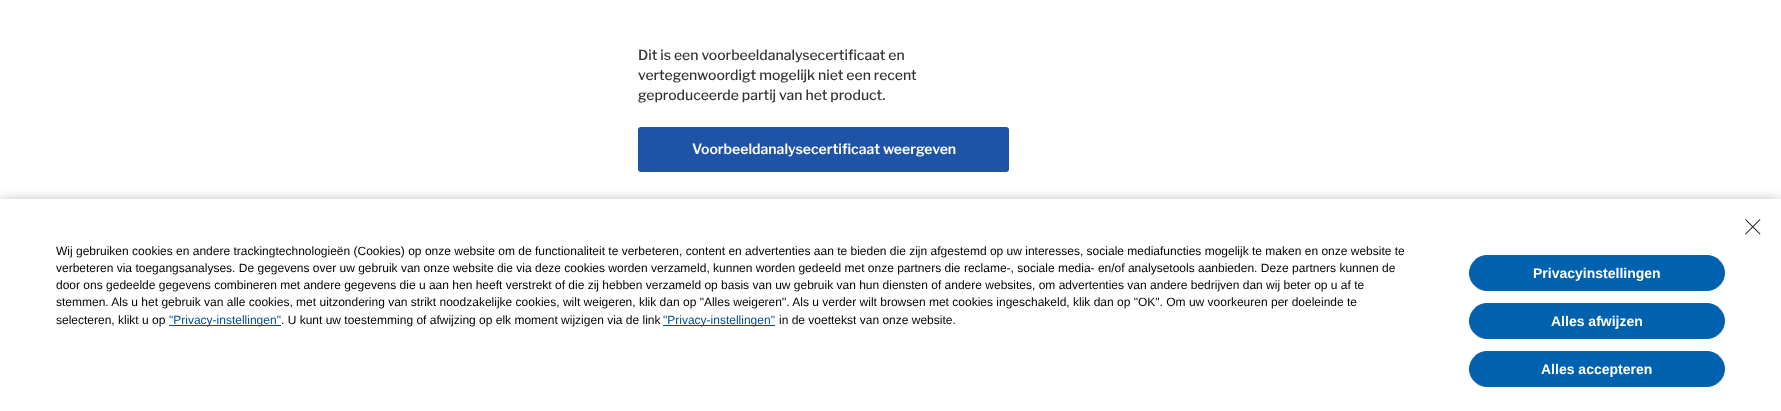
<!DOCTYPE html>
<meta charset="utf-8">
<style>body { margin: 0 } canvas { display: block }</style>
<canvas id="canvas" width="1781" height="411"></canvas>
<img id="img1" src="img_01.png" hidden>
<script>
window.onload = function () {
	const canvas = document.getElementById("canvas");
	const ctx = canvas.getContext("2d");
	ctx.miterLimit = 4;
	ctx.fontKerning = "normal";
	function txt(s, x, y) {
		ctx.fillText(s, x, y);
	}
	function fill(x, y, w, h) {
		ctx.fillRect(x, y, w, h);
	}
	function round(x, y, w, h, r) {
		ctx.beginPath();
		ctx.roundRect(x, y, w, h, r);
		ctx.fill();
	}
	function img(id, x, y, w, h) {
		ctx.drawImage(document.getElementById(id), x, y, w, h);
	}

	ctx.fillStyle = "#FFFFFF";
	fill(0, 0, 1781, 411);
	ctx.fillStyle = "#1E53A5";
	round(638, 127, 371, 45, 3);
	ctx.fillStyle = "rgba(0, 0, 0, 0.5)";
	ctx.filter = "blur(7.5px)";
	ctx.beginPath();
	ctx.rect(0, 204, 1781, 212);
	ctx.fill();
	ctx.filter = "none";
	ctx.fillStyle = "#FFFFFF";
	fill(0, 199, 1781, 212);
	img("img1", 1745, 219, 16, 16);
	ctx.fillStyle = "#004D8A";
	fill(169, 325, 112, 1);
	fill(663, 325, 112, 1);
	ctx.fillStyle = "#0061AF";
	ctx.beginPath();
	ctx.roundRect(1469.5, 255.5, 255, 35, 17.5);
	ctx.fill();
	ctx.strokeStyle = "#0061AF";
	ctx.stroke();
	ctx.beginPath();
	ctx.roundRect(1469.5, 303.5, 255, 35, 17.5);
	ctx.fill();
	ctx.stroke();
	ctx.beginPath();
	ctx.roundRect(1469.5, 351.5, 255, 35, 17.5);
	ctx.fill();
	ctx.stroke();
	ctx.font = "500 14px Libre Franklin";
	ctx.fillStyle = "#333333";
	txt("Dit is een voorbeeldanalysecertificaat en", 638, 60);
	txt("vertegenwoordigt mogelijk niet een recent", 638, 80);
	txt("geproduceerde partij van het product.", 638, 100);
	ctx.font = "600 14px Libre Franklin";
	ctx.fillStyle = "#FFFFFF";
	txt("Voorbeeldanalysecertificaat weergeven", 692, 154);
	ctx.font = "12px Liberation Sans";
	ctx.fillStyle = "#000000";
	txt("Wij gebruiken cookies en andere trackingtechnologieën (Cookies) op onze website om de functionaliteit te verbeteren, content en advertenties aan te bieden die zijn afgestemd op uw interesses, sociale mediafuncties mogelijk te maken en onze website te", 56, 255);
	txt("verbeteren via toegangsanalyses. De gegevens over uw gebruik van onze website die via deze cookies worden verzameld, kunnen worden gedeeld met onze partners die reclame-, sociale media- en/of analysetools aanbieden. Deze partners kunnen de", 56, 272);
	txt("door ons gedeelde gegevens combineren met andere gegevens die u aan hen heeft verstrekt of die zij hebben verzameld op basis van uw gebruik van hun diensten of andere websites, om advertenties van andere bedrijven dan wij beter op u af te", 56, 289);
	txt("stemmen. Als u het gebruik van alle cookies, met uitzondering van strikt noodzakelijke cookies, wilt weigeren, klik dan op \"Alles weigeren\". Als u verder wilt browsen met cookies ingeschakeld, klik dan op \"OK\". Om uw voorkeuren per doeleinde te", 56, 306);
	txt("selecteren, klikt u op", 56, 324);
	ctx.fillStyle = "#004D8A";
	txt("\"Privacy-instellingen\"", 169, 324);
	ctx.fillStyle = "#000000";
	txt(". U kunt uw toestemming of afwijzing op elk moment wijzigen via de link", 281, 324);
	ctx.fillStyle = "#004D8A";
	txt("\"Privacy-instellingen\"", 663, 324);
	ctx.fillStyle = "#000000";
	txt("in de voettekst van onze website.", 779, 324);
	ctx.font = "bold 14px Liberation Sans";
	ctx.fillStyle = "#FFFFFF";
	txt("Privacyinstellingen", 1533, 278);
	txt("Alles afwijzen", 1551, 326);
	txt("Alles accepteren", 1541, 374);
};
</script>
